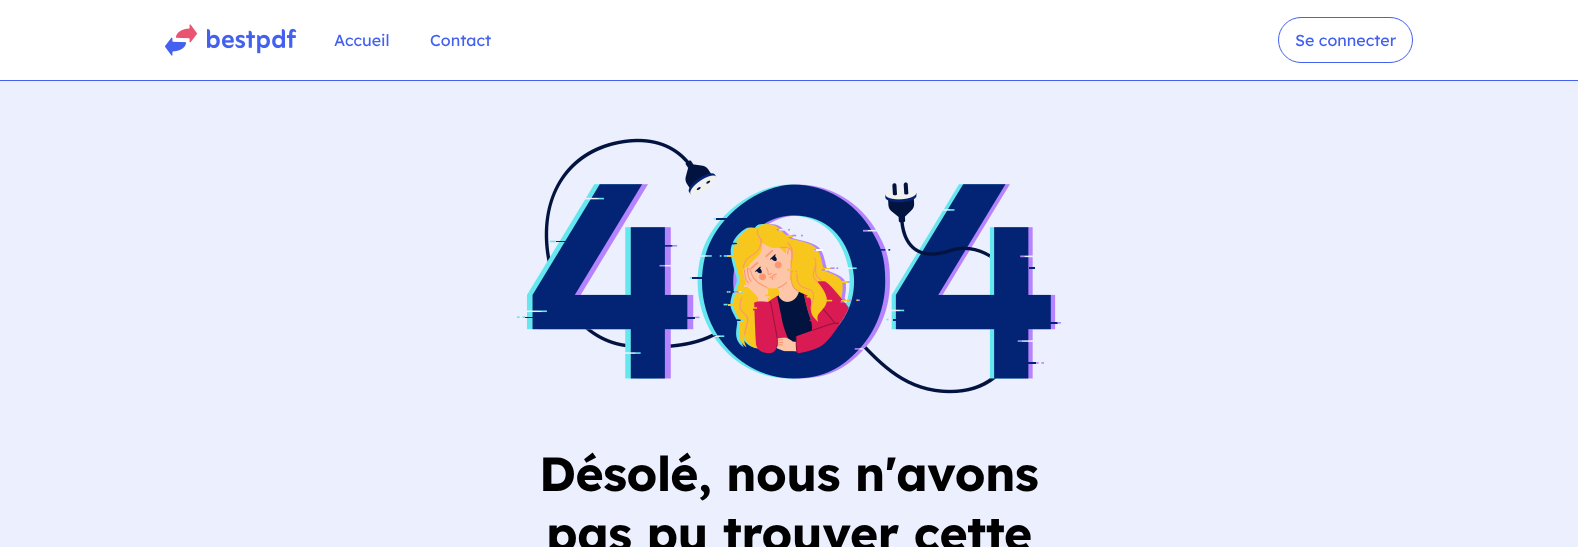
<!DOCTYPE html>
<meta charset="utf-8">
<style>body { margin: 0 } canvas { display: block }</style>
<canvas id="canvas" width="1578" height="547"></canvas>
<img id="img1" src="img_01.png" hidden>
<img id="img2" src="img_02.png" hidden>
<script>
window.onload = function () {
	const canvas = document.getElementById("canvas");
	const ctx = canvas.getContext("2d");
	ctx.miterLimit = 4;
	ctx.fontKerning = "normal";
	function txt(s, x, y) {
		ctx.fillText(s, x, y);
	}
	function fill(x, y, w, h) {
		ctx.fillRect(x, y, w, h);
	}
	function img(id, x, y, w, h) {
		ctx.drawImage(document.getElementById(id), x, y, w, h);
	}

	ctx.fillStyle = "#ECEFFD";
	fill(0, 0, 1578, 547);
	ctx.fillStyle = "#FFFFFF";
	fill(0, 0, 1578, 80);
	ctx.fillStyle = "#4361EE";
	fill(0, 80, 1578, 1);
	img("img1", 165, 24, 132, 32);
	ctx.beginPath();
	ctx.roundRect(1278.5, 17.5, 134, 45, 22.5);
	ctx.strokeStyle = "#4361EE";
	ctx.stroke();
	img("img2", 517, 138, 544, 256);
	ctx.font = "16px Lexend";
	txt("Accueil", 334, 46);
	txt("Contact", 430, 46);
	txt("Se connecter", 1295, 46);
	ctx.letterSpacing = "-0.5px";
	ctx.font = "bold 48px Lexend";
	ctx.fillStyle = "#000000";
	txt("Désolé, nous n'avons", 539, 491);
	txt("pas pu trouver cette", 546, 551);
};
</script>
